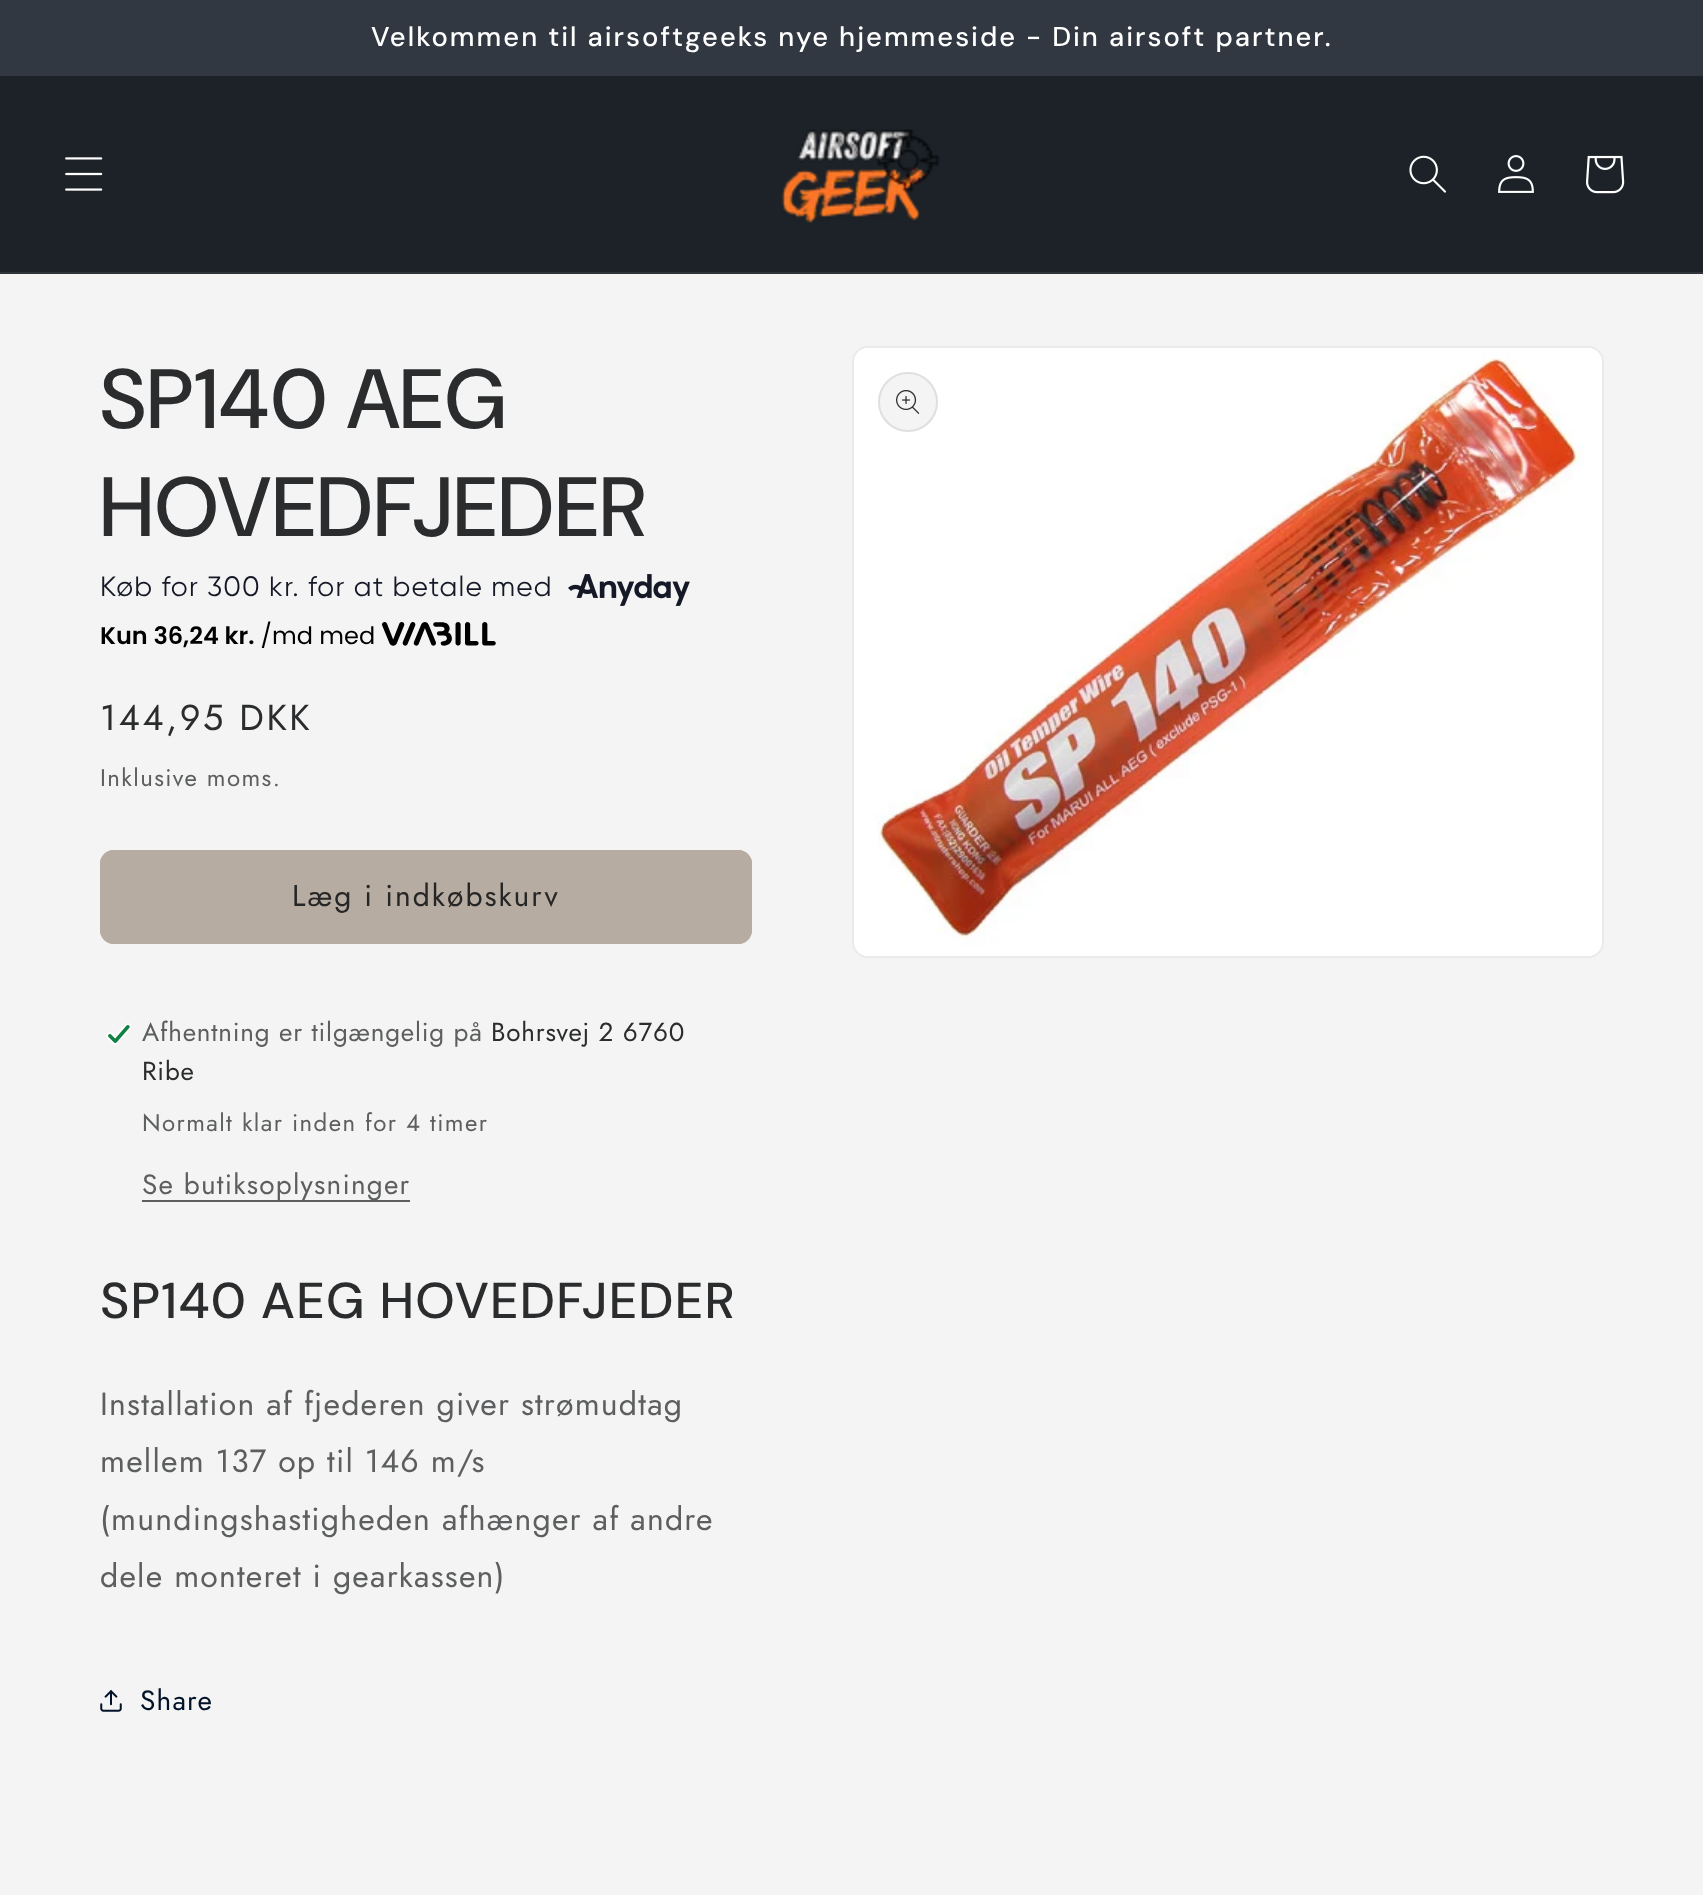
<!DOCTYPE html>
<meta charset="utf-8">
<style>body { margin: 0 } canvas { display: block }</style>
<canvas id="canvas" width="1703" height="1895"></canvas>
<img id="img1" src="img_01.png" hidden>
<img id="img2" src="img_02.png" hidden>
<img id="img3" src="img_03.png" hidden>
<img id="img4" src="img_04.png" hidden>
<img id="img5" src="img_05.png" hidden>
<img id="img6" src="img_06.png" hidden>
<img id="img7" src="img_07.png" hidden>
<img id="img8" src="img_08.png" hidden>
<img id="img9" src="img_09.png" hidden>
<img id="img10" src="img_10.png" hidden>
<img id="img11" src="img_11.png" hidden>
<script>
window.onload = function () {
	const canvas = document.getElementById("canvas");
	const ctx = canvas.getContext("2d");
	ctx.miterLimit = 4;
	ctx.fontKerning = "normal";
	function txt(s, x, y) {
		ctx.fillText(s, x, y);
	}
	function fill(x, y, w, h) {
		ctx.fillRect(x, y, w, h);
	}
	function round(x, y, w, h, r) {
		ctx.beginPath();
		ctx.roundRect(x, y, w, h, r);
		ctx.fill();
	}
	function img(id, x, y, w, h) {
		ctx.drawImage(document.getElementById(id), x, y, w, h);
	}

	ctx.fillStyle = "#F4F4F4";
	fill(0, 0, 1703, 1895);
	ctx.fillStyle = "#323841";
	fill(0, 0, 1703, 76);
	ctx.fillStyle = "#1C2228";
	fill(0, 76, 1703, 196);
	ctx.fillStyle = "#2E3439";
	fill(0, 272, 1703, 2);
	img("img1", 65, 157, 38, 34);
	img("img2", 781, 129, 159, 94);
	img("img3", 1409, 155, 37, 38);
	img("img4", 1498, 155, 36, 38);
	img("img5", 1586, 155, 39, 39);
	img("img6", 568, 574, 122, 32);
	img("img7", 101, 621, 395, 27);
	ctx.fillStyle = "#B7ACA2";
	round(100, 850, 652, 94, 14);
	ctx.beginPath();
	ctx.roundRect(101, 851, 650, 92, 13);
	ctx.strokeStyle = "#B7ACA2";
	ctx.lineWidth = 2;
	ctx.stroke();
	img("img8", 106, 1023, 26, 22);
	ctx.fillStyle = "#5D5E5F";
	fill(142, 1200, 268, 2);
	img("img9", 100, 1690, 22, 22);
	ctx.beginPath();
	ctx.roundRect(853, 347, 750, 610, 15);
	ctx.strokeStyle = "#EAEAEA";
	ctx.stroke();
	img("img10", 854, 348, 748, 608);
	ctx.fillStyle = "#F4F4F4";
	ctx.beginPath();
	ctx.arc(908, 402, 30, 0, Math.PI * 2);
	ctx.fill();
	ctx.beginPath();
	ctx.arc(908, 402, 29, 0, Math.PI * 2);
	ctx.strokeStyle = "rgba(43, 44, 45, 0.1)";
	ctx.stroke();
	img("img11", 896, 390, 24, 24);
	ctx.letterSpacing = "2px";
	ctx.font = "500 27.3px 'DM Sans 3'";
	ctx.fillStyle = "#FFFFFF";
	txt("Velkommen til airsoftgeeks nye hjemmeside - Din airsoft partner.", 371, 46);
	ctx.letterSpacing = "1.25px";
	ctx.font = "500 84px DM Sans";
	ctx.fillStyle = "#2B2C2D";
	txt("SP140 AEG", 100, 428);
	txt("HOVEDFJEDER", 100, 536);
	ctx.letterSpacing = "1.2px";
	ctx.font = "28px Gilroy";
	ctx.fillStyle = "#151826";
	txt("Køb for 300 kr. for at betale med", 100, 596);
	ctx.letterSpacing = "2.6px";
	ctx.font = "36px Jost";
	ctx.fillStyle = "#2B2C2D";
	txt("144,95 DKK", 100, 730);
	ctx.letterSpacing = "1.4px";
	ctx.font = "24px Jost";
	ctx.fillStyle = "#5D5E5F";
	txt("Inklusive moms.", 100, 786);
	ctx.letterSpacing = "2px";
	ctx.font = "30px Jost";
	ctx.fillStyle = "#262626";
	txt("Læg i indkøbskurv", 292, 906);
	ctx.letterSpacing = "0.8px";
	ctx.font = "26px Jost";
	ctx.fillStyle = "#5D5E5F";
	txt("Afhentning er tilgængelig på", 142, 1041);
	ctx.fillStyle = "#2B2C2D";
	txt("Bohrsvej 2 6760", 491, 1041);
	txt("Ribe", 142, 1080);
	ctx.letterSpacing = "1.4px";
	ctx.font = "24px Jost";
	ctx.fillStyle = "#5D5E5F";
	txt("Normalt klar inden for 4 timer", 142, 1131);
	ctx.letterSpacing = "1.2px";
	ctx.font = "28px Jost";
	txt("Se butiksoplysninger", 142, 1194);
	ctx.letterSpacing = "1.25px";
	ctx.font = "500 50.4px 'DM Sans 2'";
	ctx.fillStyle = "#2B2C2D";
	txt("SP140 AEG HOVEDFJEDER", 100, 1318);
	ctx.letterSpacing = "1.2px";
	ctx.font = "32px Jost";
	ctx.fillStyle = "#5D5E5F";
	txt("Installation af fjederen giver strømudtag", 100, 1415);
	txt("mellem 137 op til 146 m/s", 100, 1472);
	txt("(mundingshastigheden afhænger af andre", 100, 1530);
	txt("dele monteret i gearkassen)", 100, 1587);
	ctx.font = "28px Jost";
	ctx.fillStyle = "#001128";
	txt("Share", 140, 1710);
};
</script>
